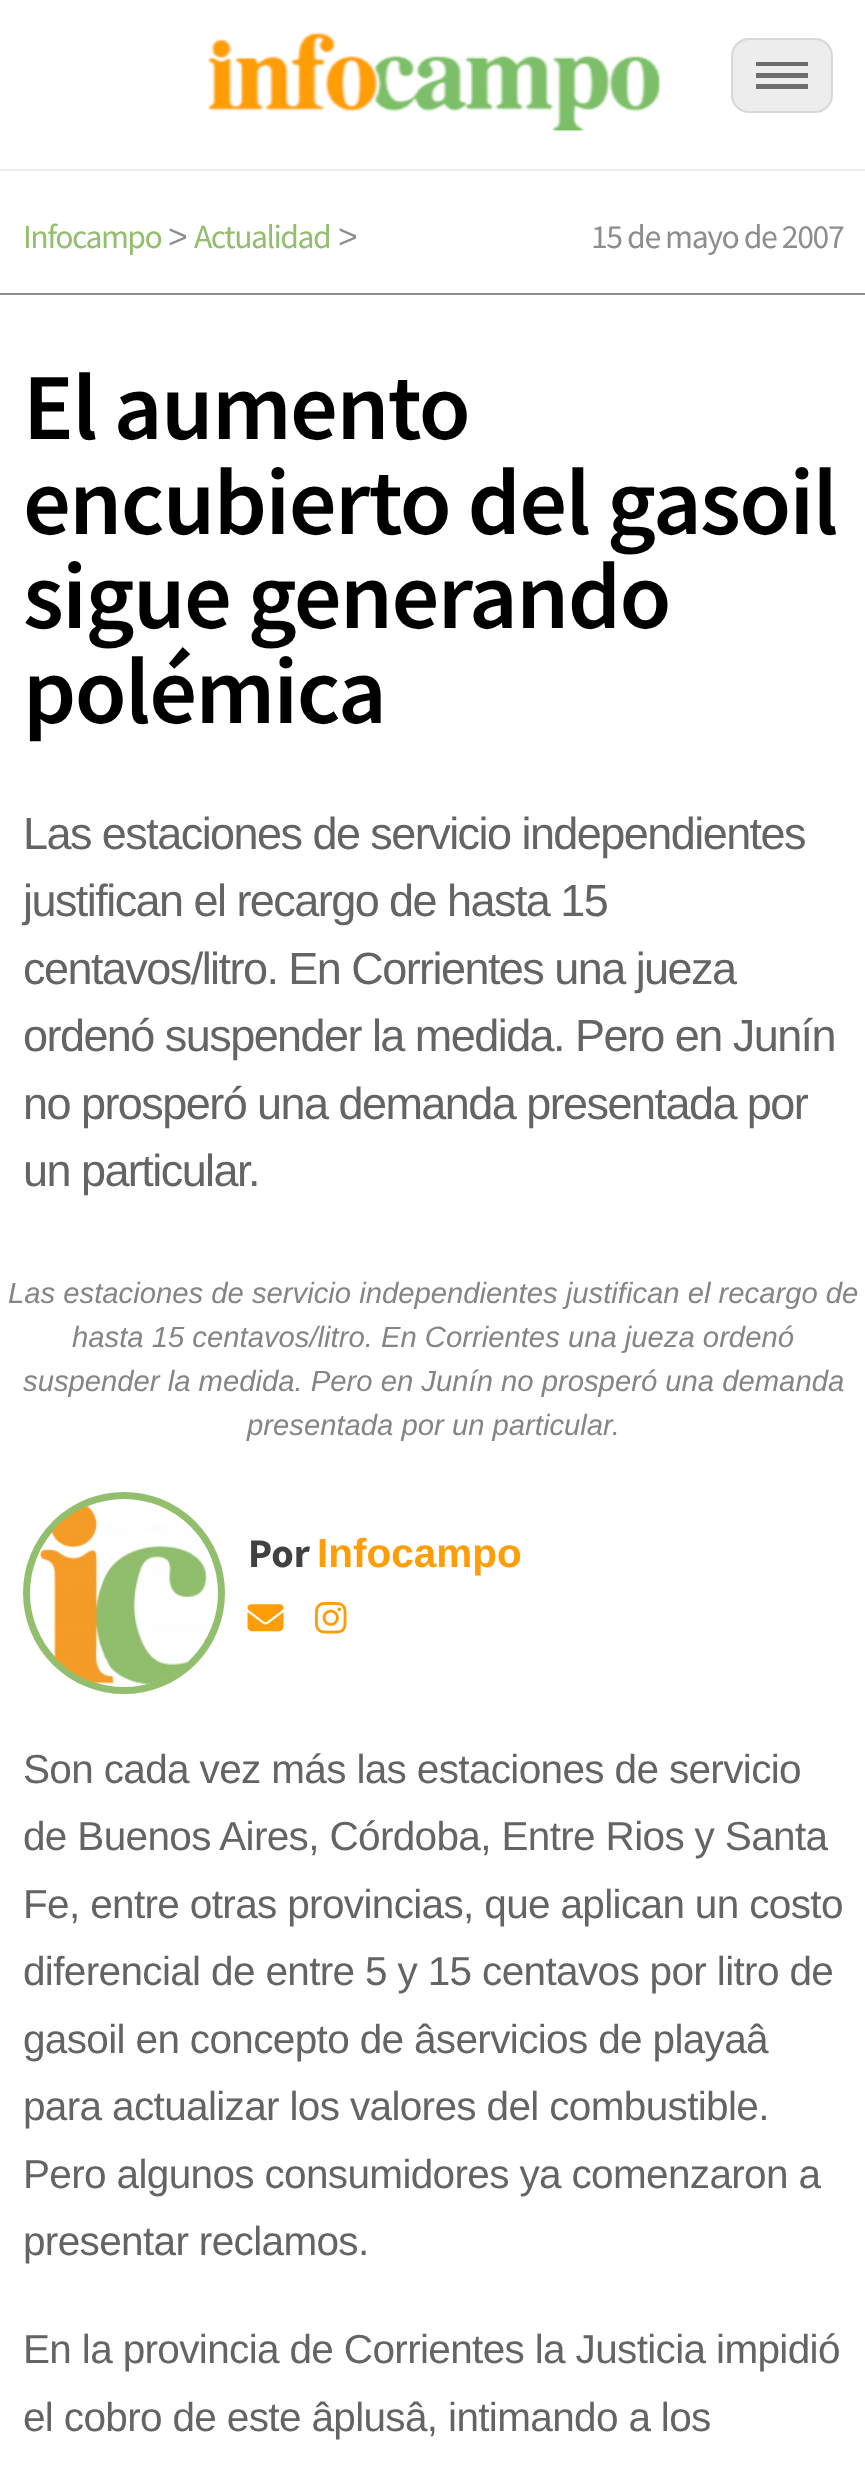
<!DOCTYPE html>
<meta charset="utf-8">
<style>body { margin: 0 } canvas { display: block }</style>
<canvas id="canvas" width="865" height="2465"></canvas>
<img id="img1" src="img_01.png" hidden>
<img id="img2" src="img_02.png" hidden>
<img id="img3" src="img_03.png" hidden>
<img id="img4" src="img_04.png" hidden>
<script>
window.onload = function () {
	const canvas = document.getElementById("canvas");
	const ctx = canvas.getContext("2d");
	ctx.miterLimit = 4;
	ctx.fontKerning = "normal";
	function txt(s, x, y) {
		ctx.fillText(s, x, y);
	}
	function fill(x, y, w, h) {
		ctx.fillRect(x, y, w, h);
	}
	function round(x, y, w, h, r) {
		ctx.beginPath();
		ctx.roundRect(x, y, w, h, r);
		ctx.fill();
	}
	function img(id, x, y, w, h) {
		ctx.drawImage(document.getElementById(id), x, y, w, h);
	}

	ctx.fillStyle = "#FFFFFF";
	fill(0, 0, 865, 2465);
	ctx.fillStyle = "#ECECEC";
	fill(0, 169, 865, 2);
	img("img1", 208, 32, 452, 100);
	ctx.fillStyle = "#EDEDED";
	round(731, 38, 102, 75, 18);
	ctx.beginPath();
	ctx.roundRect(732, 39, 100, 73, 17);
	ctx.strokeStyle = "rgba(112, 112, 112, 0.17)";
	ctx.lineWidth = 2;
	ctx.stroke();
	ctx.fillStyle = "#6D6D6D";
	ctx.beginPath();
	ctx.moveTo(756, 89);
	ctx.lineTo(808, 89);
	ctx.lineTo(808, 84);
	ctx.lineTo(756, 84);
	ctx.closePath();
	ctx.moveTo(756, 78);
	ctx.lineTo(808, 78);
	ctx.lineTo(808, 73);
	ctx.lineTo(756, 73);
	ctx.closePath();
	ctx.moveTo(756, 62);
	ctx.lineTo(756, 66);
	ctx.lineTo(808, 66);
	ctx.lineTo(808, 62);
	ctx.closePath();
	ctx.fill("evenodd");
	ctx.fillStyle = "#8D8D8D";
	fill(0, 293, 865, 2);
	ctx.beginPath();
	ctx.arc(124, 1593, 97.5, 0, Math.PI * 2);
	ctx.strokeStyle = "#92BE6D";
	ctx.lineWidth = 7;
	ctx.stroke();
	img("img2", 40, 1506, 168, 179);
	img("img3", 247, 1604, 37, 28);
	img("img4", 315, 1602, 32, 32);
	ctx.letterSpacing = "-1.55px";
	ctx.font = "33.75px Source Sans Pro";
	ctx.fillStyle = "#92BE6D";
	txt("Infocampo", 23, 248);
	ctx.font = "33.75px Liberation Sans";
	ctx.fillStyle = "#8D8D8D";
	txt(">", 168, 248);
	ctx.font = "33.75px Source Sans Pro";
	ctx.fillStyle = "#92BE6D";
	txt("Actualidad", 194, 248);
	ctx.font = "33.75px Liberation Sans";
	ctx.fillStyle = "#8D8D8D";
	txt(">", 338, 248);
	ctx.letterSpacing = "-1.4px";
	ctx.font = "33.75px Source Sans Pro";
	txt("15 de mayo de 2007", 591, 248);
	ctx.letterSpacing = "-1.55px";
	ctx.font = "600 94.5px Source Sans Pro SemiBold";
	ctx.fillStyle = "#000000";
	txt("El aumento", 23, 439);
	txt("encubierto del gasoil", 23, 534);
	txt("sigue generando", 23, 628);
	txt("polémica", 23, 723);
	ctx.font = "45px Liberation Sans";
	ctx.fillStyle = "#646464";
	txt("Las estaciones de servicio independientes", 23, 849);
	txt("justifican el recargo de hasta 15", 23, 916);
	txt("centavos/litro. En Corrientes una jueza", 23, 984);
	txt("ordenó suspender la medida. Pero en Junín", 23, 1051);
	txt("no prosperó una demanda presentada por", 23, 1119);
	txt("un particular.", 23, 1186);
	ctx.letterSpacing = "0px";
	ctx.font = "italic 29.25px Liberation Sans";
	ctx.fillStyle = "#858585";
	txt("Las estaciones de servicio independientes justifican el recargo de", 8, 1303);
	txt("hasta 15 centavos/litro. En Corrientes una jueza ordenó", 72, 1347);
	txt("suspender la medida. Pero en Junín no prosperó una demanda", 23, 1391);
	txt("presentada por un particular.", 247, 1435);
	ctx.font = "bold 40.5px Source Sans Pro";
	ctx.fillStyle = "#414141";
	txt("Por", 248, 1567);
	ctx.font = "bold 40.5px Liberation Sans";
	ctx.fillStyle = "#FF9D07";
	txt("Infocampo", 317, 1567);
	ctx.letterSpacing = "-0.65px";
	ctx.font = "40.5px Liberation Sans";
	ctx.fillStyle = "#646464";
	txt("Son cada vez más las estaciones de servicio", 23, 1783);
	txt("de Buenos Aires, Córdoba, Entre Rios y Santa", 23, 1850);
	txt("Fe, entre otras provincias, que aplican un costo", 23, 1918);
	txt("diferencial de entre 5 y 15 centavos por litro de", 23, 1985);
	txt("gasoil en concepto de âservicios de playaâ", 23, 2053);
	txt("para actualizar los valores del combustible.", 23, 2120);
	txt("Pero algunos consumidores ya comenzaron a", 23, 2188);
	txt("presentar reclamos.", 23, 2255);
	txt("En la provincia de Corrientes la Justicia impidió", 23, 2363);
	txt("el cobro de este âplusâ, intimando a los", 23, 2431);
};
</script>
